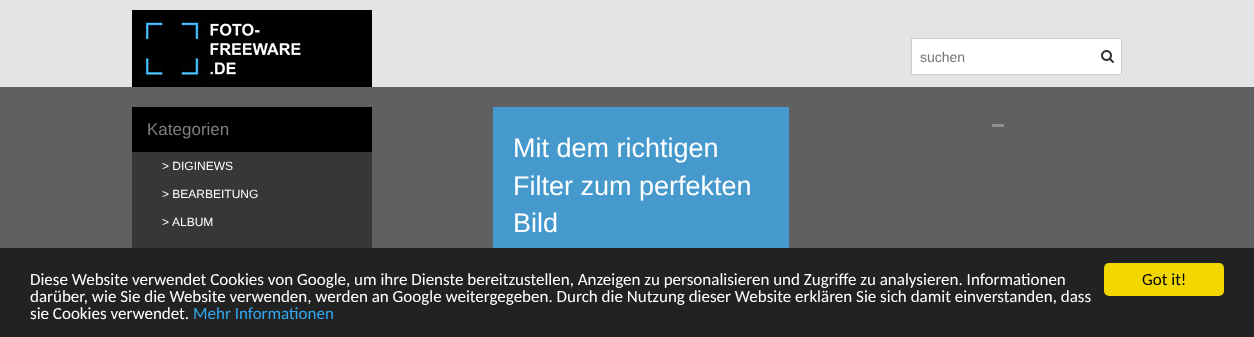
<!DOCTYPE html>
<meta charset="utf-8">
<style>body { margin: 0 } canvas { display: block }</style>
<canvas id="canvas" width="1254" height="337"></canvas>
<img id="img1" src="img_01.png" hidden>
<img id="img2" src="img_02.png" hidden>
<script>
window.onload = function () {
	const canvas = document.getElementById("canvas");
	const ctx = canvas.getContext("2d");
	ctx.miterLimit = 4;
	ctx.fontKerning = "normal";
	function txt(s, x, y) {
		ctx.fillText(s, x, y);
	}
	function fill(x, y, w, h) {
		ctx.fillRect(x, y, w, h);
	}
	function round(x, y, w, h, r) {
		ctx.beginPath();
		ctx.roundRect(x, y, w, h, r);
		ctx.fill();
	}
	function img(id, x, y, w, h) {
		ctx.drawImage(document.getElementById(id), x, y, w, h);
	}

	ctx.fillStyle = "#E4E4E4";
	fill(0, 0, 1254, 337);
	ctx.fillStyle = "#000000";
	fill(132, 10, 240, 77);
	img("img1", 140, 18, 167, 64);
	ctx.fillStyle = "#FFFFFF";
	ctx.beginPath();
	ctx.rect(911.5, 38.5, 210, 36);
	ctx.fill();
	ctx.strokeStyle = "#CCCCCC";
	ctx.stroke();
	img("img2", 1101, 50, 13, 13);
	ctx.fillStyle = "#606060";
	fill(0, 87, 1254, 161);
	ctx.fillStyle = "#000000";
	fill(132, 107, 240, 45);
	ctx.fillStyle = "#373737";
	fill(132, 152, 240, 96);
	ctx.fillStyle = "#909090";
	fill(992, 124, 12, 3);
	ctx.fillStyle = "#4599CD";
	fill(493, 107, 296, 141);
	ctx.fillStyle = "#222222";
	fill(0, 248, 1254, 89);
	ctx.fillStyle = "#F1D600";
	round(1104, 263, 120, 33, 5);
	ctx.font = "14px Liberation Sans";
	ctx.fillStyle = "#757575";
	txt("suchen", 920, 62);
	ctx.font = "17px Liberation Sans";
	ctx.fillStyle = "#7F7F7F";
	txt("Kategorien", 147, 135);
	ctx.font = "12px Liberation Sans";
	ctx.fillStyle = "#FFFFFF";
	txt("> DIGINEWS", 162, 170);
	txt("> BEARBEITUNG", 162, 198);
	txt(">", 162, 226);
	txt("ALBUM", 172, 226);
	ctx.font = "27px Liberation Sans";
	txt("Mit dem richtigen", 513, 157);
	txt("Filter zum perfekten", 513, 195);
	txt("Bild", 513, 232);
	ctx.font = "17px Carlito";
	txt("Diese Website verwendet Cookies von Google, um ihre Dienste bereitzustellen, Anzeigen zu personalisieren und Zugriffe zu analysieren. Informationen", 30, 285);
	txt("darüber, wie Sie die Website verwenden, werden an Google weitergegeben. Durch die Nutzung dieser Website erklären Sie sich damit einverstanden, dass", 30, 302);
	txt("sie Cookies verwendet.", 30, 319);
	ctx.fillStyle = "#31A8F0";
	txt("Mehr Informationen", 193, 319);
	ctx.fillStyle = "#000000";
	txt("Got it!", 1142, 285);
};
</script>
